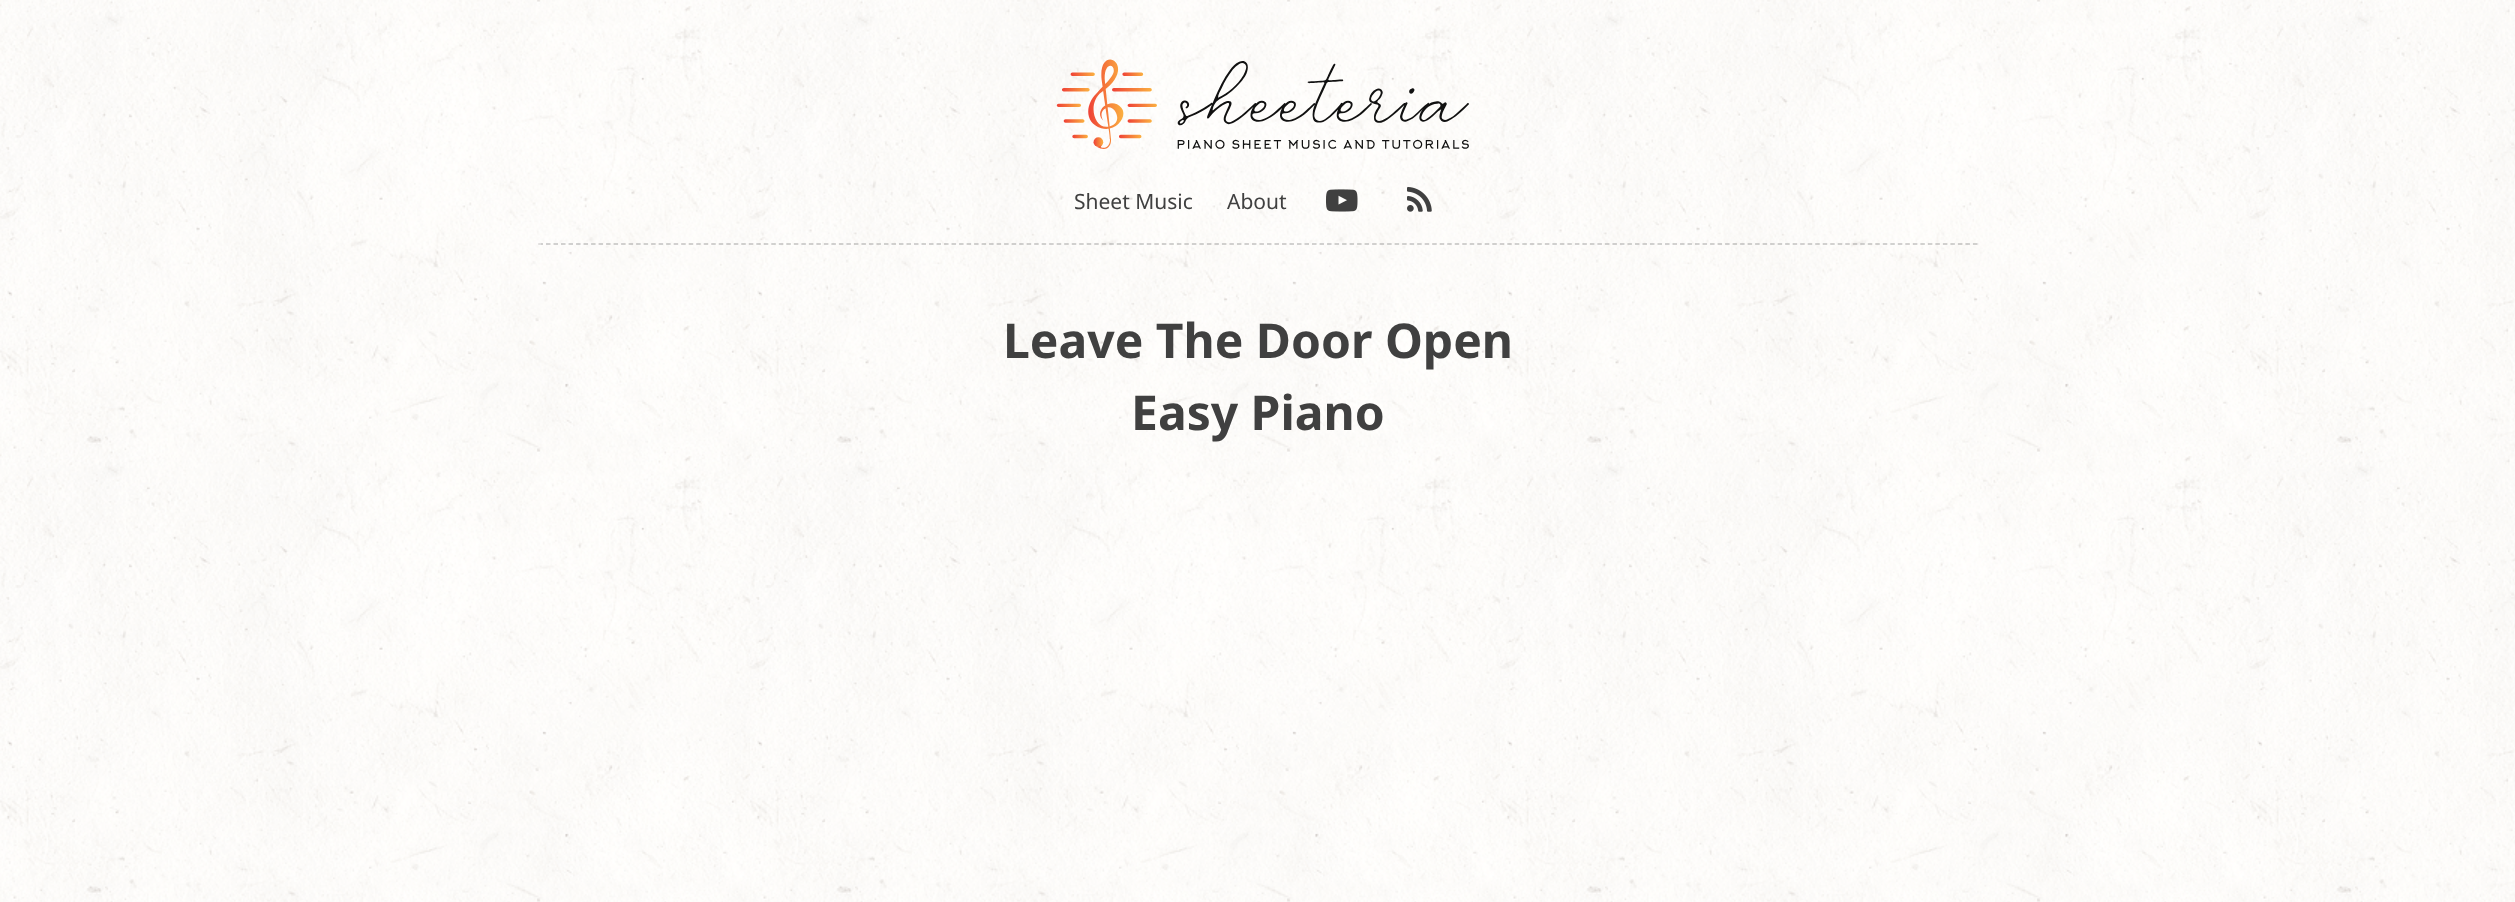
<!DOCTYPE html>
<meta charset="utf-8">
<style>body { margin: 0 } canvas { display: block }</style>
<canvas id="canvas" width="2515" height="902"></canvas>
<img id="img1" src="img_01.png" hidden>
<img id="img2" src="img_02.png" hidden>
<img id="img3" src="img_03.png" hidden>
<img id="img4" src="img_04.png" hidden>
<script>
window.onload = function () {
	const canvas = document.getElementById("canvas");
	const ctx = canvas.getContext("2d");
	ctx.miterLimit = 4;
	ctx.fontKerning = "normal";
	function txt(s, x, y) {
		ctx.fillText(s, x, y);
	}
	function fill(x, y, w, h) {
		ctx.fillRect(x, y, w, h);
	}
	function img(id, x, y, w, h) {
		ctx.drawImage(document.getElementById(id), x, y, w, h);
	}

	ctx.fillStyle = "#FFFFFF";
	fill(0, 0, 2515, 902);
	img("img1", 0, 0, 2515, 902);
	img("img2", 1056, 59, 413, 90);
	img("img3", 1326, 189, 32, 23);
	img("img4", 1407, 187, 25, 25);
	ctx.fillStyle = "#F7F6F5";
	fill(1977, 243, 2, 2);
	ctx.beginPath();
	ctx.moveTo(538.5, 244);
	ctx.lineTo(1978.5, 244);
	ctx.strokeStyle = "rgba(64, 64, 64, 0.3)";
	ctx.lineWidth = 1.5;
	ctx.setLineDash([4.5, 3.01]);
	ctx.stroke();
	ctx.fillStyle = "#E1E0DF";
	fill(539, 243, 2, 2);
	ctx.font = "21px Noto Sans";
	ctx.fillStyle = "#404040";
	txt("Sheet Music", 1074, 209);
	txt("About", 1227, 209);
	ctx.font = "bold 48px Noto Sans";
	txt("Leave The Door Open", 1003, 358);
	txt("Easy Piano", 1131, 430);
};
</script>
